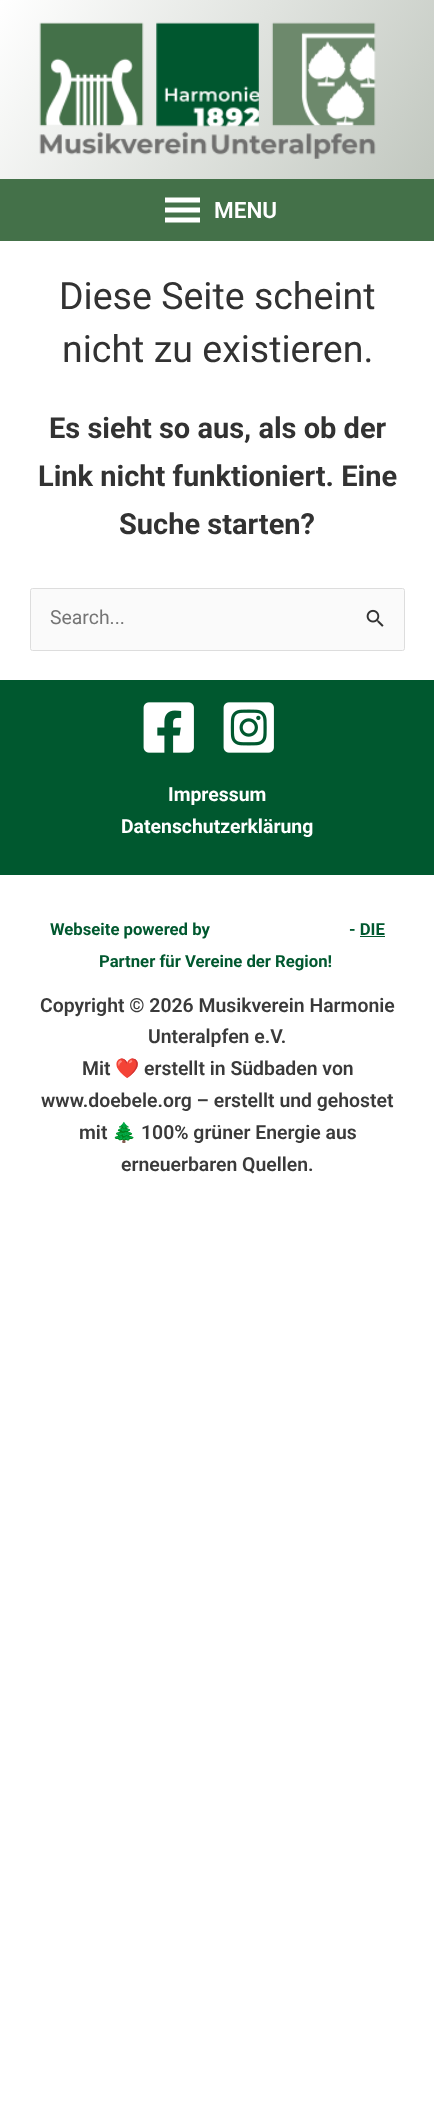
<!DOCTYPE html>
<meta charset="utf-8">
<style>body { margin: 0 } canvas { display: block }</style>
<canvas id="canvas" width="434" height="2107"></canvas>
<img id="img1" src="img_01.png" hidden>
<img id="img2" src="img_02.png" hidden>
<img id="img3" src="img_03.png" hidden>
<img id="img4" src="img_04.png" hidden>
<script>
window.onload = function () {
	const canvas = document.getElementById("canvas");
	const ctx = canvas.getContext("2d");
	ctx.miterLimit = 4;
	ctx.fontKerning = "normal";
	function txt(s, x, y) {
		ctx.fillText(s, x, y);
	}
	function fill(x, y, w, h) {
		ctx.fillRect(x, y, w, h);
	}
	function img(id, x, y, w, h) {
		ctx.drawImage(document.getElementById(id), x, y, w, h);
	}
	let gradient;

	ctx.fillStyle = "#FFFFFF";
	fill(0, 0, 434, 2107);
	gradient = ctx.createLinearGradient(24, -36, 411, 215);
	gradient.addColorStop(0, "#592A85");
	gradient.addColorStop(0, "#FFFFFF");
	gradient.addColorStop(0.99, "#C2C8C0");
	ctx.fillStyle = gradient;
	fill(0, 0, 434, 179);
	img("img1", 39, 22, 337, 137);
	ctx.fillStyle = "#447149";
	fill(0, 179, 434, 62);
	ctx.fillStyle = "#FFFFFF";
	ctx.beginPath();
	ctx.moveTo(165, 222.5);
	ctx.lineTo(200, 222.5);
	ctx.lineTo(200, 217.5);
	ctx.lineTo(165, 217.5);
	ctx.closePath();
	ctx.moveTo(165, 197.5);
	ctx.lineTo(165, 202.5);
	ctx.lineTo(200, 202.5);
	ctx.lineTo(200, 197.5);
	ctx.closePath();
	ctx.moveTo(165, 212.5);
	ctx.lineTo(200, 212.5);
	ctx.lineTo(200, 207.5);
	ctx.lineTo(165, 207.5);
	ctx.closePath();
	ctx.fill();
	ctx.fillStyle = "#FAFAFA";
	ctx.beginPath();
	ctx.roundRect(30.5, 588.5, 374, 62, 2);
	ctx.fill();
	ctx.strokeStyle = "#DDDDDD";
	ctx.stroke();
	img("img2", 366, 609, 18, 18);
	ctx.fillStyle = "#00582F";
	fill(0, 680, 434, 195);
	img("img3", 143, 702, 51, 51);
	img("img4", 223, 702, 51, 51);
	fill(360, 936, 25, 1);
	ctx.font = "600 22.5px Roboto";
	ctx.fillStyle = "#FFFFFF";
	txt("MENU", 214, 218);
	ctx.font = "37.5px Roboto";
	ctx.fillStyle = "#323232";
	txt("Diese Seite scheint", 59, 309);
	txt("nicht zu existieren.", 62, 362);
	ctx.font = "bold 29px Roboto";
	txt("Es sieht so aus, als ob der", 49, 438);
	txt("Link nicht funktioniert. Eine", 38, 486);
	txt("Suche starten?", 119, 534);
	ctx.font = "19.4px Roboto";
	ctx.fillStyle = "#757575";
	txt("Search...", 50, 624);
	ctx.font = "bold 19.4px Roboto";
	ctx.fillStyle = "#FFFFFF";
	txt("Impressum", 168, 801);
	txt("Datenschutzerklärung", 121, 833);
	ctx.font = "bold 16.7px Roboto";
	ctx.fillStyle = "#00582F";
	txt("Webseite powered by", 50, 935);
	txt("- DIE", 349, 935);
	txt("Partner für Vereine der Region!", 99, 967);
	ctx.font = "600 19.4px Roboto";
	ctx.fillStyle = "#3A3A3A";
	txt("Copyright © 2026 Musikverein Harmonie", 40, 1012);
	txt("Unteralpfen e.V.", 148, 1043);
	txt("Mit", 82, 1075);
	ctx.font = "bold 19.4px Noto Color Emoji";
	txt("❤️", 115, 1075);
	ctx.font = "600 19.4px Roboto";
	txt("erstellt in Südbaden von", 144, 1075);
	txt("www.doebele.org – erstellt und gehostet", 41, 1107);
	txt("mit", 79, 1139);
	ctx.font = "bold 19.4px Noto Color Emoji";
	txt("🌲", 112, 1139);
	ctx.font = "600 19.4px Roboto";
	txt("100% grüner Energie aus", 141, 1139);
	txt("erneuerbaren Quellen.", 121, 1171);
};
</script>
